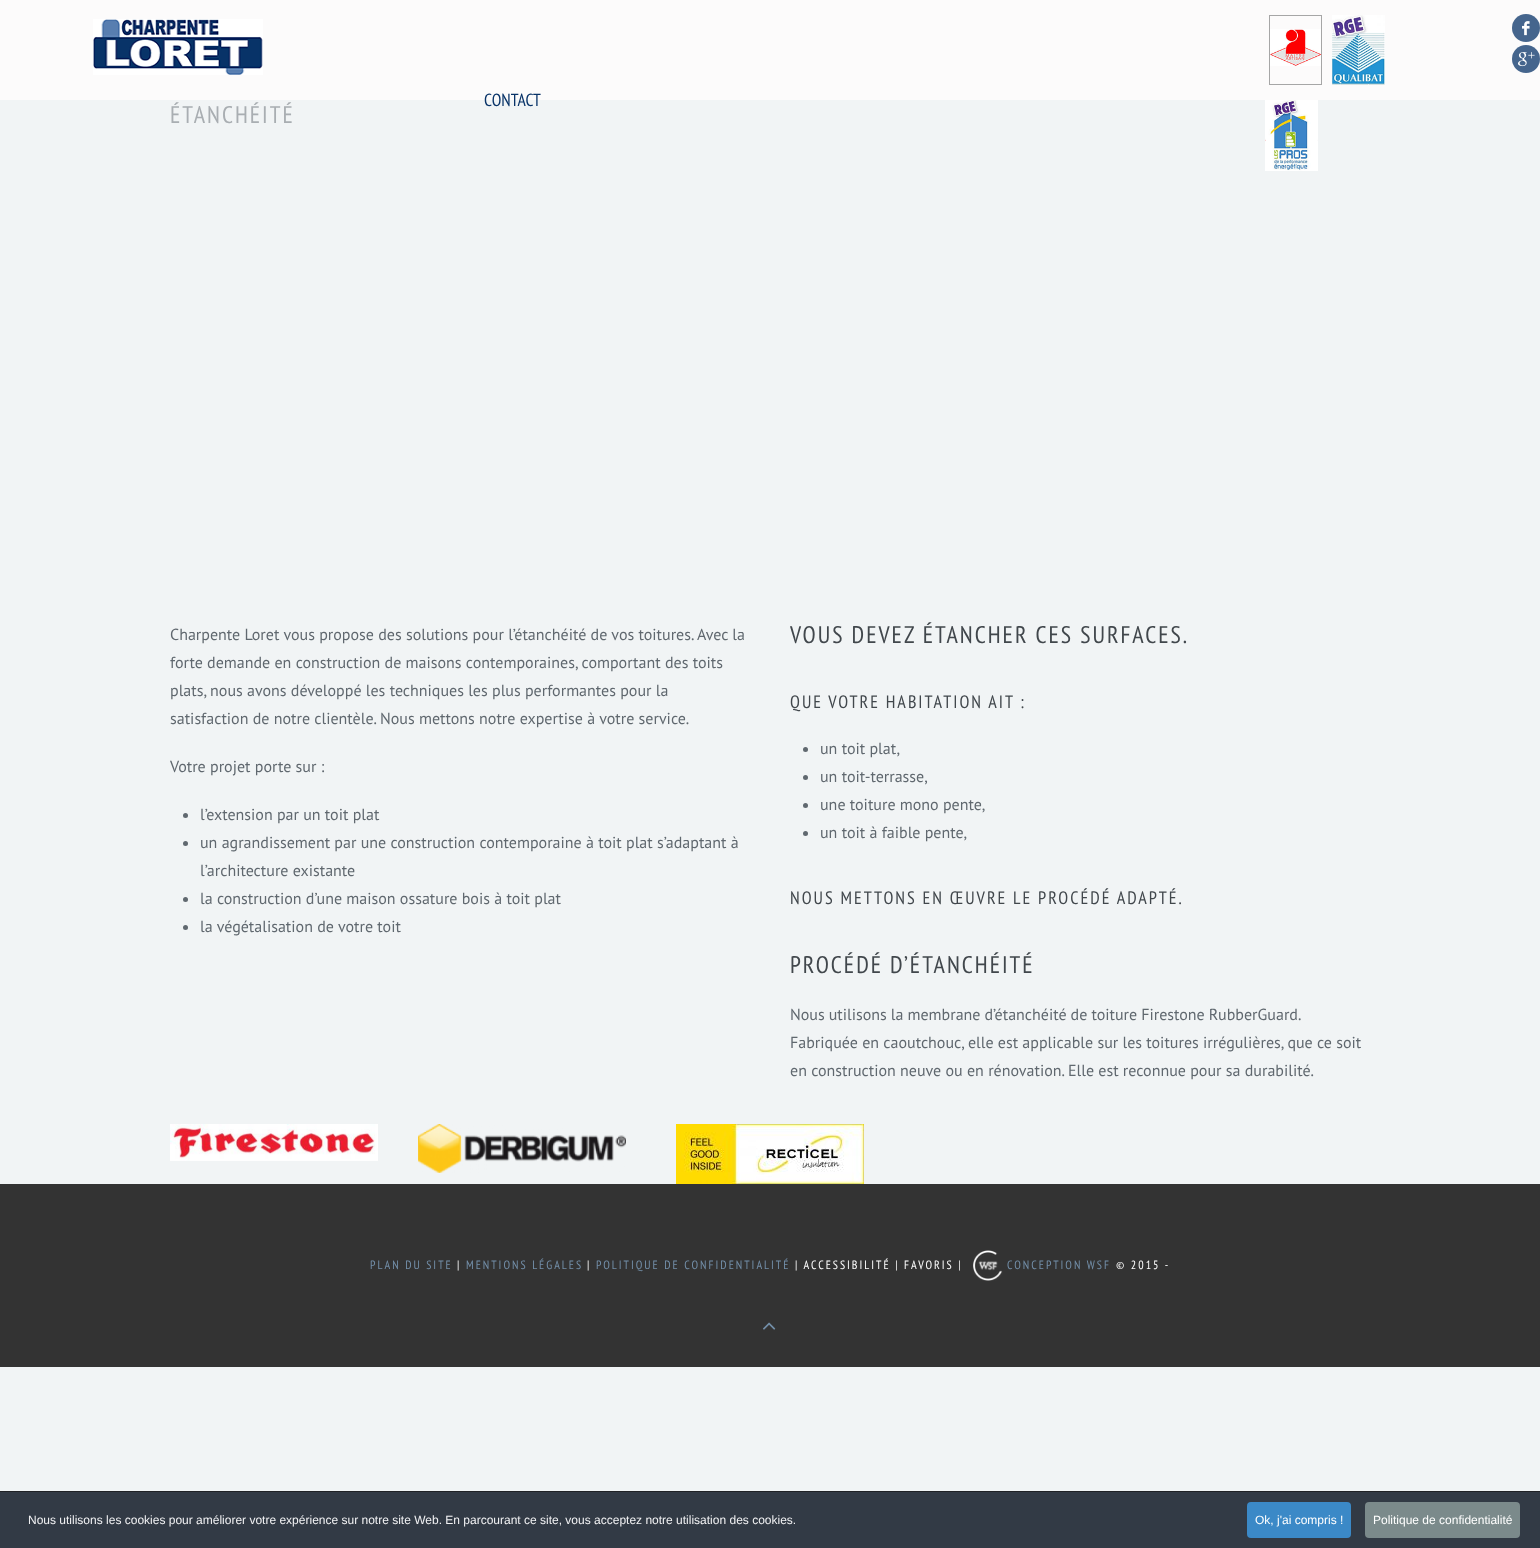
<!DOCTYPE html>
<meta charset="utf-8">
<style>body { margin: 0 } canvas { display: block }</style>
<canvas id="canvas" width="1540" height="1548"></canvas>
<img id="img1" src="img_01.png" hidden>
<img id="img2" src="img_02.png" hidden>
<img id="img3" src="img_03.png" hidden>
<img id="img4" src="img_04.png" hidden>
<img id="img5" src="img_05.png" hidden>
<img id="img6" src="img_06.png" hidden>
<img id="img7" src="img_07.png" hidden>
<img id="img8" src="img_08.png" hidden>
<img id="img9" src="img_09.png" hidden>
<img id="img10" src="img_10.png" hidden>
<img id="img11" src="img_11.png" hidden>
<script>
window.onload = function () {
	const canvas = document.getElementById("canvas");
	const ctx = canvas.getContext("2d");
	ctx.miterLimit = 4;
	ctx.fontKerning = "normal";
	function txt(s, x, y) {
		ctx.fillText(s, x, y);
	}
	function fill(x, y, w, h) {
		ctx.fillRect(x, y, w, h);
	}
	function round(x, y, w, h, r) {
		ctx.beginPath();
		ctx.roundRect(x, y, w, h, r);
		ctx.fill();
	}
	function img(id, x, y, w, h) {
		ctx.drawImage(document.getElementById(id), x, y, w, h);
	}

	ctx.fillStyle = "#F1F4F5";
	fill(0, 0, 1540, 1548);
	ctx.fillStyle = "#FCFBFB";
	fill(0, 0, 1540, 100);
	ctx.fillStyle = "#45658D";
	ctx.beginPath();
	ctx.arc(1526, 28, 14, 0, Math.PI * 2);
	ctx.fill();
	img("img1", 1522, 21, 8, 15);
	ctx.beginPath();
	ctx.arc(1526, 59, 14, 0, Math.PI * 2);
	ctx.fill();
	img("img2", 1518, 52, 17, 15);
	img("img3", 93, 19, 170, 56);
	ctx.strokeStyle = "#A6A6A6";
	ctx.strokeRect(1269.5, 15.5, 52, 69);
	img("img4", 1332, 15, 53, 70);
	img("img5", 1270, 29, 51, 37);
	img("img6", 1265, 100, 53, 71);
	ctx.fillStyle = "#60686F";
	ctx.beginPath();
	ctx.arc(185.5, 815.5, 2.5, 0, Math.PI * 2);
	ctx.fill();
	ctx.beginPath();
	ctx.arc(185.5, 843.5, 2.5, 0, Math.PI * 2);
	ctx.fill();
	ctx.beginPath();
	ctx.arc(185.5, 899.5, 2.5, 0, Math.PI * 2);
	ctx.fill();
	ctx.beginPath();
	ctx.arc(185.5, 927.5, 2.5, 0, Math.PI * 2);
	ctx.fill();
	ctx.beginPath();
	ctx.arc(805.5, 749.5, 2.5, 0, Math.PI * 2);
	ctx.fill();
	ctx.beginPath();
	ctx.arc(805.5, 777.5, 2.5, 0, Math.PI * 2);
	ctx.fill();
	ctx.beginPath();
	ctx.arc(805.5, 805.5, 2.5, 0, Math.PI * 2);
	ctx.fill();
	ctx.beginPath();
	ctx.arc(805.5, 833.5, 2.5, 0, Math.PI * 2);
	ctx.fill();
	img("img7", 170, 1124, 208, 37);
	img("img8", 418, 1124, 208, 49);
	img("img9", 676, 1124, 188, 60);
	ctx.fillStyle = "#333333";
	fill(0, 1184, 1540, 183);
	img("img10", 973, 1250, 30, 31);
	img("img11", 763, 1322, 13, 8);
	ctx.fillStyle = "#323A45";
	fill(0, 1492, 1540, 56);
	ctx.fillStyle = "#202226";
	fill(0, 1491, 1540, 1);
	ctx.fillStyle = "#3B89C7";
	round(1247, 1502, 104, 36, 4);
	ctx.fillStyle = "#7B8A8B";
	round(1365, 1502, 155, 36, 4);
	ctx.font = "17.5px PT Sans Narrow";
	ctx.fillStyle = "#083368";
	txt("CONTACT", 484, 106);
	ctx.letterSpacing = "2px";
	ctx.font = "24px PT Sans Narrow";
	ctx.fillStyle = "#A9AEB2";
	txt("ÉTANCHÉITÉ", 170, 123);
	ctx.letterSpacing = "0px";
	ctx.font = "16px PT Sans";
	ctx.fillStyle = "#60686F";
	txt("Charpente Loret vous propose des solutions pour l’étanchéité de vos toitures. Avec la", 170, 640);
	txt("forte demande en construction de maisons contemporaines, comportant des toits", 170, 668);
	txt("plats, nous avons développé les techniques les plus performantes pour la", 170, 696);
	txt("satisfaction de notre clientèle. Nous mettons notre expertise à votre service.", 170, 724);
	txt("Votre projet porte sur :", 170, 772);
	txt("l’extension par un toit plat", 200, 820);
	txt("un agrandissement par une construction contemporaine à toit plat s’adaptant à", 200, 848);
	txt("l’architecture existante", 200, 876);
	txt("la construction d’une maison ossature bois à toit plat", 200, 904);
	txt("la végétalisation de votre toit", 200, 932);
	ctx.letterSpacing = "2px";
	ctx.font = "24px PT Sans Narrow";
	ctx.fillStyle = "#41474C";
	txt("VOUS DEVEZ ÉTANCHER CES SURFACES.", 790, 643);
	ctx.font = "18px PT Sans Narrow";
	txt("QUE VOTRE HABITATION AIT :", 790, 708);
	ctx.letterSpacing = "0px";
	ctx.font = "16px PT Sans";
	ctx.fillStyle = "#60686F";
	txt("un toit plat,", 820, 754);
	txt("un toit-terrasse,", 820, 782);
	txt("une toiture mono pente,", 820, 810);
	txt("un toit à faible pente,", 820, 838);
	ctx.letterSpacing = "2px";
	ctx.font = "18px PT Sans Narrow";
	ctx.fillStyle = "#41474C";
	txt("NOUS METTONS EN ŒUVRE LE PROCÉDÉ ADAPTÉ.", 790, 904);
	ctx.font = "24px PT Sans Narrow";
	txt("PROCÉDÉ D’ÉTANCHÉITÉ", 790, 973);
	ctx.letterSpacing = "0px";
	ctx.wordSpacing = "-0.25px";
	ctx.font = "16px PT Sans";
	ctx.fillStyle = "#60686F";
	txt("Nous utilisons la membrane d’étanchéité de toiture Firestone RubberGuard.", 790, 1020);
	ctx.wordSpacing = "0px";
	txt("Fabriquée en caoutchouc, elle est applicable sur les toitures irrégulières, que ce soit", 790, 1048);
	txt("en construction neuve ou en rénovation. Elle est reconnue pour sa durabilité.", 790, 1076);
	ctx.letterSpacing = "2px";
	ctx.font = "12px PT Sans Narrow";
	ctx.fillStyle = "#738FA9";
	txt("PLAN DU SITE", 370, 1269);
	ctx.fillStyle = "#FFFFFF";
	txt("|", 457, 1269);
	ctx.fillStyle = "#738FA9";
	txt("MENTIONS LÉGALES", 466, 1269);
	ctx.fillStyle = "#FFFFFF";
	txt("|", 587, 1269);
	ctx.fillStyle = "#738FA9";
	txt("POLITIQUE DE CONFIDENTIALITÉ", 596, 1269);
	ctx.fillStyle = "#FFFFFF";
	txt("| ACCESSIBILITÉ | FAVORIS |", 795, 1269);
	ctx.fillStyle = "#738FA9";
	txt("CONCEPTION WSF", 1007, 1269);
	ctx.fillStyle = "#FFFFFF";
	txt("© 2015 -", 1116, 1269);
	ctx.letterSpacing = "0px";
	ctx.font = "12px Liberation Sans";
	ctx.fillStyle = "#F1F1F3";
	txt("Nous utilisons les cookies pour améliorer votre expérience sur notre site Web. En parcourant ce site, vous acceptez notre utilisation des cookies.", 28, 1524);
	ctx.fillStyle = "#FFFFFF";
	txt("Ok, j'ai compris !", 1255, 1524);
	txt("Politique de confidentialité", 1373, 1524);
};
</script>
